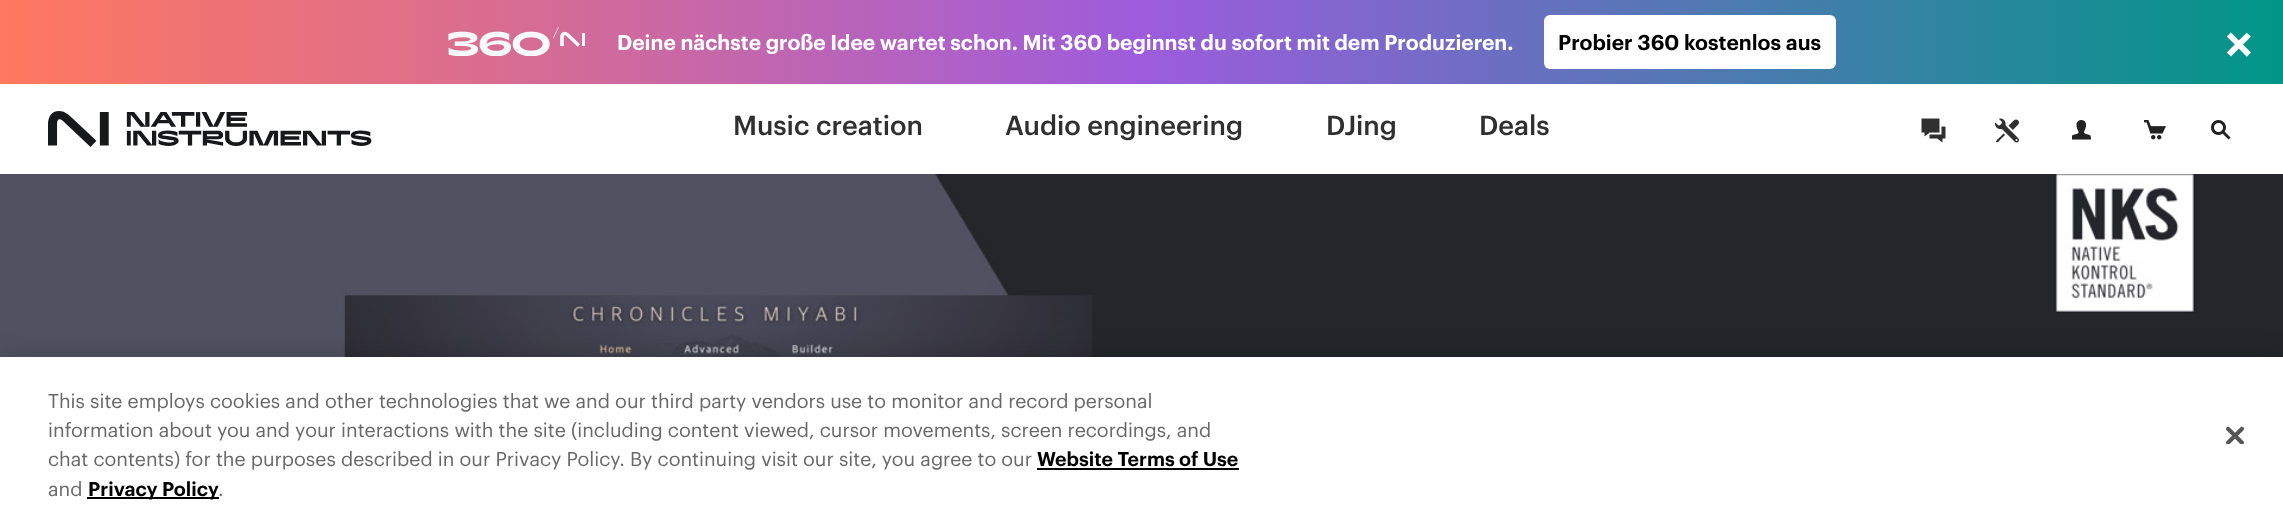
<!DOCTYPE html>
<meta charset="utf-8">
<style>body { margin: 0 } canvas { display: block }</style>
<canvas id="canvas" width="2283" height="518"></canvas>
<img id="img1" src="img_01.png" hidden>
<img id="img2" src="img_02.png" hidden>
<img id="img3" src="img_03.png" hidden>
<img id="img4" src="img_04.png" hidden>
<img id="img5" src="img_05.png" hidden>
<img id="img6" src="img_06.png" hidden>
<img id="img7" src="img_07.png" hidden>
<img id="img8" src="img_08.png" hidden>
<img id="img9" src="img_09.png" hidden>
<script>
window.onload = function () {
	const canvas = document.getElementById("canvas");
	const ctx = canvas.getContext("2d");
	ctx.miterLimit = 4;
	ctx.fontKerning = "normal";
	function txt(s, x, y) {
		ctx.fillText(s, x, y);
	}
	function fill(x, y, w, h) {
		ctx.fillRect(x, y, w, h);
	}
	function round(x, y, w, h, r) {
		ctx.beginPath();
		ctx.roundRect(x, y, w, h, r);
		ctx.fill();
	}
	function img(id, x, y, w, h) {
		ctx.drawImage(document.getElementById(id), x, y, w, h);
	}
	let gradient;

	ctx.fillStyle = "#FFFFFF";
	fill(0, 0, 2283, 518);
	gradient = ctx.createLinearGradient(0, 42, 2283, 42);
	gradient.addColorStop(0, "#FF785F");
	gradient.addColorStop(0.25, "#D36B98");
	gradient.addColorStop(0.5, "#9D5CDD");
	gradient.addColorStop(0.75, "#4F79B2");
	gradient.addColorStop(1, "#009687");
	ctx.fillStyle = gradient;
	fill(0, 0, 2283, 84);
	img("img1", 448, 27, 137, 29);
	ctx.fillStyle = "#FFFFFF";
	round(1544, 15, 292, 54, 6);
	img("img2", 48, 111, 324, 36);
	img("img3", 1921, 118, 25, 25);
	img("img4", 1995, 118, 24, 25);
	img("img5", 2072, 120, 19, 20);
	img("img6", 2144, 120, 22, 20);
	img("img7", 2211, 120, 20, 20);
	img("img8", 0, 174, 2283, 183);
	ctx.fillStyle = "rgba(0, 0, 0, 0.2)";
	ctx.filter = "blur(13.5px)";
	ctx.beginPath();
	ctx.rect(0, 357, 2283, 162);
	ctx.fill();
	ctx.filter = "none";
	ctx.fillStyle = "#FFFFFF";
	fill(0, 357, 2283, 161);
	ctx.fillStyle = "#000000";
	fill(1037, 468, 202, 2);
	fill(87, 497, 132, 2);
	img("img9", 2226, 426, 18, 18);
	ctx.font = "600 21px Graphik";
	ctx.fillStyle = "#FFFFFF";
	txt("Deine nächste große Idee wartet schon. Mit 360 beginnst du sofort mit dem Produzieren.", 617, 50);
	ctx.fillStyle = "#000000";
	txt("Probier 360 kostenlos aus", 1558, 50);
	ctx.font = "600 52px Graphik";
	ctx.fillStyle = "#FFFFFF";
	txt("×", 2225, 62);
	ctx.font = "500 27px Graphik";
	ctx.fillStyle = "#303030";
	txt("Music creation", 733, 135);
	txt("Audio engineering", 1005, 135);
	txt("DJing", 1326, 135);
	txt("Deals", 1479, 135);
	ctx.font = "19.5px Graphik";
	ctx.fillStyle = "#696969";
	txt("This site employs cookies and other technologies that we and our third party vendors use to monitor and record personal", 48, 408);
	txt("information about you and your interactions with the site (including content viewed, cursor movements, screen recordings, and", 48, 437);
	txt("chat contents) for the purposes described in our Privacy Policy.", 48, 466);
	txt("By continuing visit our site, you agree to our", 630, 466);
	ctx.font = "600 19.5px Graphik";
	ctx.fillStyle = "#000000";
	txt("Website Terms of Use", 1037, 466);
	ctx.font = "19.5px Graphik";
	ctx.fillStyle = "#696969";
	txt("and", 48, 496);
	ctx.font = "600 19.5px Graphik";
	ctx.fillStyle = "#000000";
	txt("Privacy Policy", 88, 496);
	ctx.font = "19.5px Graphik";
	ctx.fillStyle = "#696969";
	txt(".", 218, 496);
};
</script>
